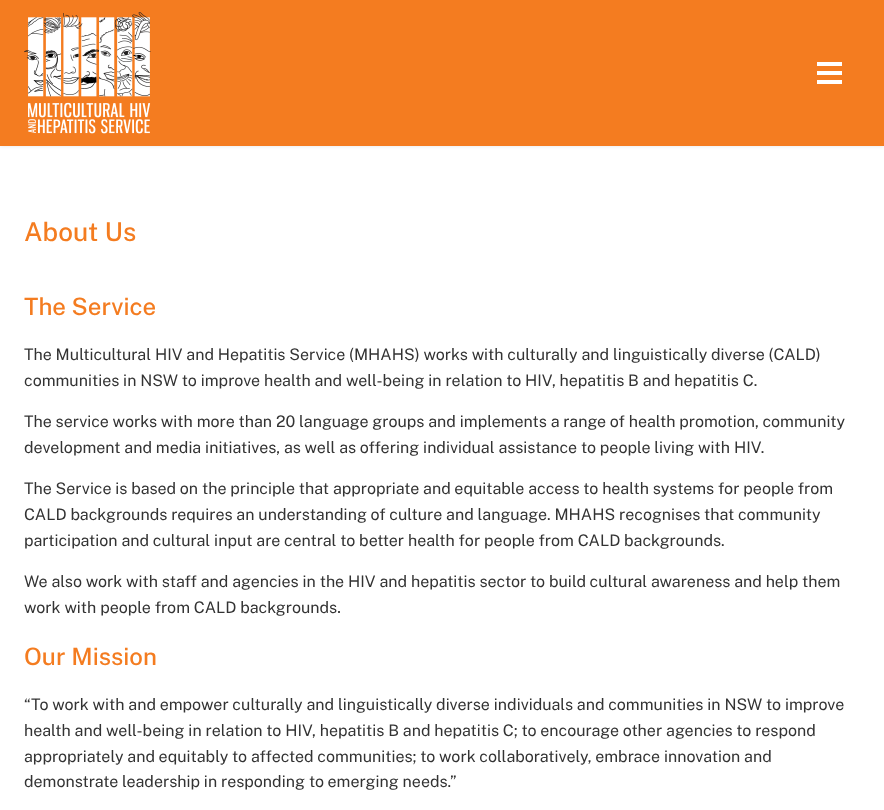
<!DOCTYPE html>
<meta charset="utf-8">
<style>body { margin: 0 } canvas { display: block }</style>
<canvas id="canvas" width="884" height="810"></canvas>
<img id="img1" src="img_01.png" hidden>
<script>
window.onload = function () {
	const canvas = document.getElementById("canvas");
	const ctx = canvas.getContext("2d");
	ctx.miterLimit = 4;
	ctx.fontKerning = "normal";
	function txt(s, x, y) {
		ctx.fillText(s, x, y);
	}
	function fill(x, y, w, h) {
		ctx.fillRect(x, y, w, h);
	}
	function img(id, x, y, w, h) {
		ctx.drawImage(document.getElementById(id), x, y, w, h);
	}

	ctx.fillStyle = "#FFFFFF";
	fill(0, 0, 884, 810);
	ctx.fillStyle = "rgba(0, 0, 0, 0.1)";
	ctx.filter = "blur(2px)";
	ctx.beginPath();
	ctx.rect(0, 0, 884, 146);
	ctx.fill();
	ctx.filter = "none";
	ctx.fillStyle = "#F47C20";
	fill(0, 0, 884, 146);
	img("img1", 24, 12, 127, 122);
	ctx.fillStyle = "#FFFFFF";
	fill(817, 62, 25, 4);
	fill(817, 71, 25, 4);
	fill(817, 80, 25, 4);
	ctx.font = "500 26px Public Sans";
	ctx.fillStyle = "#F47C20";
	txt("About Us", 24, 241);
	ctx.font = "500 24px Public Sans";
	txt("The Service", 24, 315);
	ctx.font = "16px Public Sans";
	ctx.fillStyle = "#333333";
	txt("The Multicultural HIV and Hepatitis Service (MHAHS) works with culturally and linguistically diverse (CALD)", 24, 360);
	txt("communities in NSW to improve health and well-being in relation to HIV, hepatitis B and hepatitis C.", 24, 386);
	txt("The service works with more than 20 language groups and implements a range of health promotion, community", 24, 427);
	txt("development and media initiatives, as well as offering individual assistance to people living with HIV.", 24, 453);
	txt("The Service is based on the principle that appropriate and equitable access to health systems for people from", 24, 494);
	txt("CALD backgrounds requires an understanding of culture and language. MHAHS recognises that community", 24, 520);
	txt("participation and cultural input are central to better health for people from CALD backgrounds.", 24, 546);
	txt("We also work with staff and agencies in the HIV and hepatitis sector to build cultural awareness and help them", 24, 587);
	txt("work with people from CALD backgrounds.", 24, 613);
	ctx.font = "500 24px Public Sans";
	ctx.fillStyle = "#F47C20";
	txt("Our Mission", 24, 665);
	ctx.font = "16px Public Sans";
	ctx.fillStyle = "#333333";
	txt("“To work with and empower culturally and linguistically diverse individuals and communities in NSW to improve", 24, 710);
	txt("health and well-being in relation to HIV, hepatitis B and hepatitis C; to encourage other agencies to respond", 24, 736);
	txt("appropriately and equitably to affected communities; to work collaboratively, embrace innovation and", 24, 762);
	txt("demonstrate leadership in responding to emerging needs.”", 24, 787);
};
</script>
